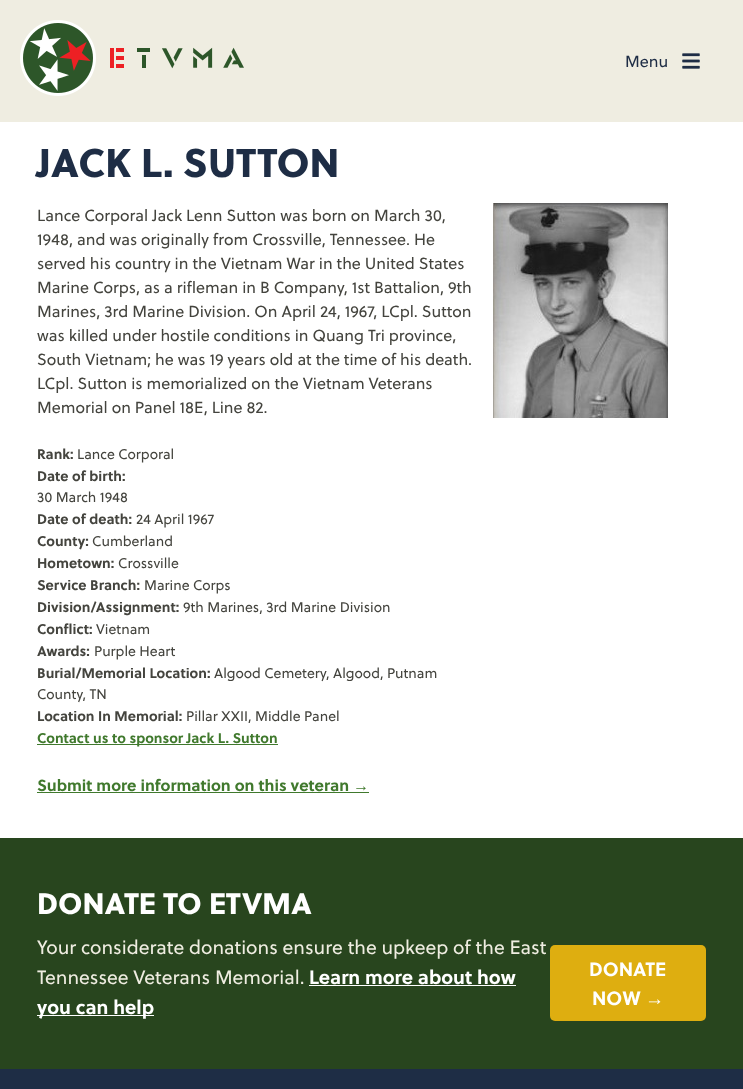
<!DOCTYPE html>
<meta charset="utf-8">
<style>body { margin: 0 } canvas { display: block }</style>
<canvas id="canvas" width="743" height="1089"></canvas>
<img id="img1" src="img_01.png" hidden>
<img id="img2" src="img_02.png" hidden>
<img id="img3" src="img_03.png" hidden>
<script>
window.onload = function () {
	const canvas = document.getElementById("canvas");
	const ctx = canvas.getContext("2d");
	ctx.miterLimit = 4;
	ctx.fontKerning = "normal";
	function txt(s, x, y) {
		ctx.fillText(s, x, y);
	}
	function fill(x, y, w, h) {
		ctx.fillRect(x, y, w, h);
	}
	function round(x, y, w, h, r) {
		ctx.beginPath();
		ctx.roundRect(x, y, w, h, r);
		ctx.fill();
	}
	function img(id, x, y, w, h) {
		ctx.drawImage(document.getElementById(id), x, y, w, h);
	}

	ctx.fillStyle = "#FFFFFF";
	fill(0, 0, 743, 1089);
	ctx.fillStyle = "#EFEDE1";
	fill(0, 0, 743, 122);
	img("img1", 20, 20, 224, 76);
	img("img2", 682, 53, 18, 16);
	ctx.fillStyle = "#40792D";
	fill(37, 744, 241, 1);
	fill(37, 792, 332, 1);
	img("img3", 493, 203, 175, 215);
	ctx.fillStyle = "#28451E";
	fill(0, 838, 743, 231);
	ctx.fillStyle = "#FFFFFF";
	fill(309, 985, 207, 1);
	fill(37, 1015, 117, 1);
	ctx.fillStyle = "#DEAE10";
	round(550, 945, 156, 76, 5);
	ctx.fillStyle = "#1E2D45";
	fill(0, 1069, 743, 20);
	ctx.font = "16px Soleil";
	txt("Menu", 625, 67);
	ctx.font = "800 40px Soleil";
	txt("JACK L. SUTTON", 37, 177);
	ctx.font = "16px Soleil";
	ctx.fillStyle = "#44443E";
	txt("Lance Corporal Jack Lenn Sutton was born on March 30,", 37, 221);
	txt("1948, and was originally from Crossville, Tennessee. He", 37, 245);
	txt("served his country in the Vietnam War in the United States", 37, 269);
	txt("Marine Corps, as a rifleman in B Company, 1st Battalion, 9th", 37, 293);
	txt("Marines, 3rd Marine Division. On April 24, 1967, LCpl. Sutton", 37, 317);
	txt("was killed under hostile conditions in Quang Tri province,", 37, 341);
	txt("South Vietnam; he was 19 years old at the time of his death.", 37, 365);
	txt("LCpl. Sutton is memorialized on the Vietnam Veterans", 37, 389);
	txt("Memorial on Panel 18E, Line 82.", 37, 413);
	ctx.font = "bold 14px Soleil";
	txt("Rank:", 37, 459);
	ctx.font = "14px Soleil";
	txt("Lance Corporal", 77, 459);
	ctx.font = "bold 14px Soleil";
	txt("Date of birth:", 37, 481);
	ctx.font = "14px Soleil";
	txt("30 March 1948", 37, 502);
	ctx.font = "bold 14px Soleil";
	txt("Date of death:", 37, 524);
	ctx.font = "14px Soleil";
	txt("24 April 1967", 136, 524);
	ctx.font = "bold 14px Soleil";
	txt("County:", 37, 546);
	ctx.font = "14px Soleil";
	txt("Cumberland", 92, 546);
	ctx.font = "bold 14px Soleil";
	txt("Hometown:", 37, 568);
	ctx.font = "14px Soleil";
	txt("Crossville", 118, 568);
	ctx.font = "bold 14px Soleil";
	txt("Service Branch:", 37, 590);
	ctx.font = "14px Soleil";
	txt("Marine Corps", 144, 590);
	ctx.font = "bold 14px Soleil";
	txt("Division/Assignment:", 37, 612);
	ctx.font = "14px Soleil";
	txt("9th Marines, 3rd Marine Division", 183, 612);
	ctx.font = "bold 14px Soleil";
	txt("Conflict:", 37, 634);
	ctx.font = "14px Soleil";
	txt("Vietnam", 96, 634);
	ctx.font = "bold 14px Soleil";
	txt("Awards:", 37, 656);
	ctx.font = "14px Soleil";
	txt("Purple Heart", 94, 656);
	ctx.font = "bold 14px Soleil";
	txt("Burial/Memorial Location:", 37, 678);
	ctx.font = "14px Soleil";
	txt("Algood Cemetery, Algood, Putnam", 214, 678);
	txt("County, TN", 37, 699);
	ctx.font = "bold 14px Soleil";
	txt("Location In Memorial:", 37, 721);
	ctx.font = "14px Soleil";
	txt("Pillar XXII, Middle Panel", 186, 721);
	ctx.font = "bold 14px Soleil";
	ctx.fillStyle = "#40792D";
	txt("Contact us to sponsor Jack L. Sutton", 37, 743);
	ctx.font = "bold 16px Soleil";
	txt("Submit more information on this veteran", 37, 791);
	ctx.font = "bold 16px Liberation Sans";
	txt("→", 353, 791);
	ctx.font = "800 29.5px Soleil";
	ctx.fillStyle = "#FFFFFF";
	txt("DONATE TO ETVMA", 37, 914);
	ctx.font = "19.2px Soleil";
	ctx.fillStyle = "#EFEDE1";
	txt("Your considerate donations ensure the upkeep of the East", 37, 954);
	txt("Tennessee Veterans Memorial.", 37, 984);
	ctx.font = "bold 19.2px Soleil";
	ctx.fillStyle = "#FFFFFF";
	txt("Learn more about how", 309, 984);
	txt("you can help", 37, 1014);
	txt("DONATE", 589, 976);
	txt("NOW", 592, 1005);
	ctx.font = "bold 19.2px Liberation Sans";
	txt("→", 645, 1005);
};
</script>
